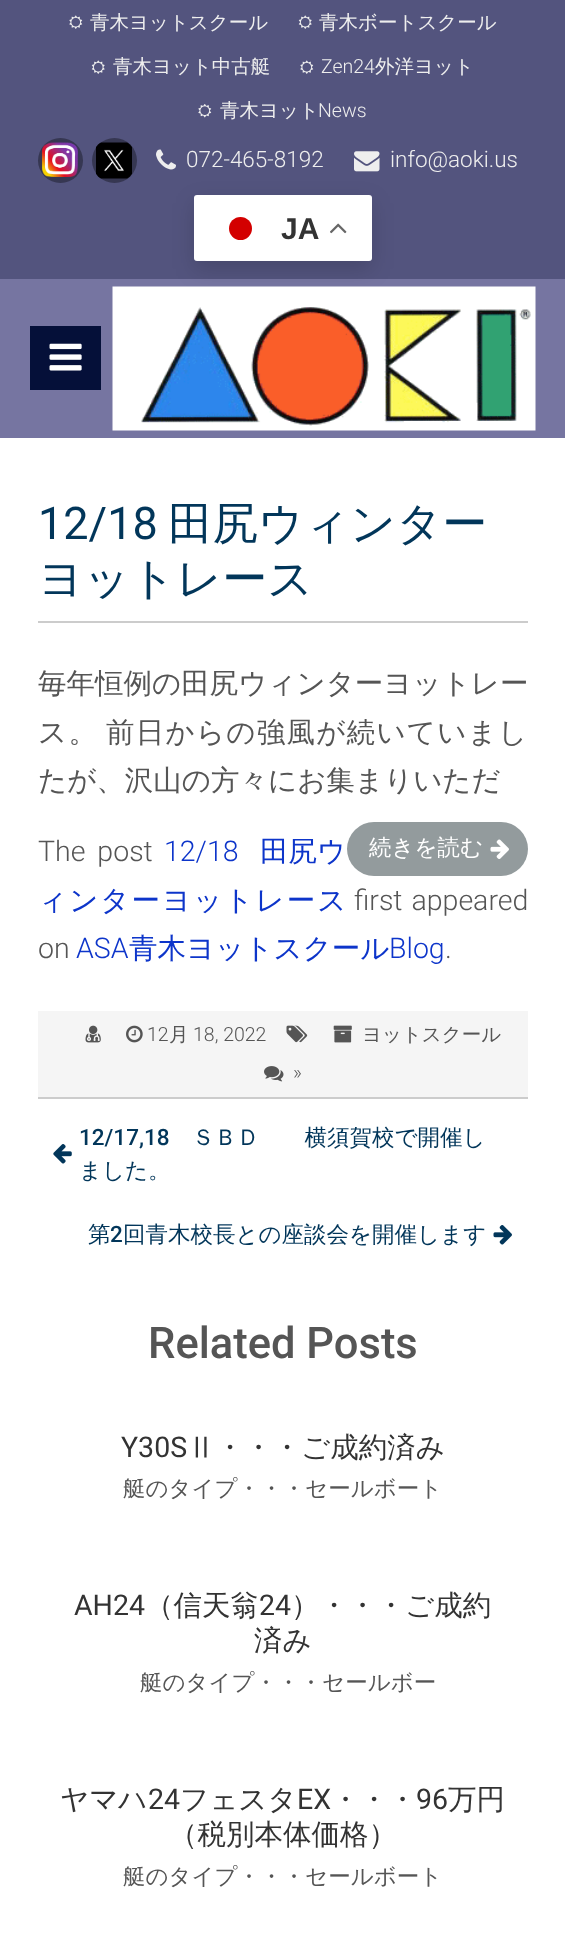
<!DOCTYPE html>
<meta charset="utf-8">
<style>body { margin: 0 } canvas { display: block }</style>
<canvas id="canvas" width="565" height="1957"></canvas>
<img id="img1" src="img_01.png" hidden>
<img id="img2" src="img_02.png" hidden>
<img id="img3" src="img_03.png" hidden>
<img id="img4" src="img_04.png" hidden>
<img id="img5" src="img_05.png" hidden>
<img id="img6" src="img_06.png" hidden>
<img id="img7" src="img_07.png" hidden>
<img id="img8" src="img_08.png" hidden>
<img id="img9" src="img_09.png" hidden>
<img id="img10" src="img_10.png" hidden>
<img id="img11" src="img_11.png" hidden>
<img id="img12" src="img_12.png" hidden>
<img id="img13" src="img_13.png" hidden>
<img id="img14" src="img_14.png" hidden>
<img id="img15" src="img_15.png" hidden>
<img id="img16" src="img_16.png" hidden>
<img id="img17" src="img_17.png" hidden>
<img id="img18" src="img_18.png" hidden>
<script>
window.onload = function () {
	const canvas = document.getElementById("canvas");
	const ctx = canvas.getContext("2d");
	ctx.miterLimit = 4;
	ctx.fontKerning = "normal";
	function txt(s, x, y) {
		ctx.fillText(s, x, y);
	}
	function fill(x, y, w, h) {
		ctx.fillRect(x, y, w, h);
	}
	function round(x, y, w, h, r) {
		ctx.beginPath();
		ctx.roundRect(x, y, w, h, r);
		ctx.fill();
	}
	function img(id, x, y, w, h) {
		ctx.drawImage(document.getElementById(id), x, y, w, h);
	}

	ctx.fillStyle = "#FFFFFF";
	fill(0, 0, 565, 1957);
	ctx.fillStyle = "#7675A1";
	fill(0, 279, 565, 159);
	ctx.fillStyle = "#53547E";
	fill(0, 0, 565, 279);
	img("img1", 69, 15, 14, 14);
	img("img2", 298, 15, 14, 14);
	img("img2", 91, 60, 14, 14);
	img("img1", 300, 60, 14, 14);
	img("img3", 198, 104, 14, 14);
	ctx.fillStyle = "#363752";
	ctx.beginPath();
	ctx.arc(60.5, 160.5, 22.5, 0, Math.PI * 2);
	ctx.fill();
	img("img4", 42, 142, 36, 35);
	ctx.beginPath();
	ctx.arc(114.5, 160.5, 22.5, 0, Math.PI * 2);
	ctx.fill();
	img("img5", 96, 142, 36, 37);
	img("img6", 156, 149, 20, 21);
	img("img7", 354, 151, 26, 21);
	ctx.fillStyle = "rgba(0, 0, 0, 0.15)";
	ctx.filter = "blur(11px)";
	ctx.beginPath();
	ctx.roundRect(194, 203, 178, 66, 3);
	ctx.fill();
	ctx.filter = "none";
	ctx.fillStyle = "#FFFFFF";
	round(194, 195, 178, 66, 3);
	ctx.fillStyle = "#D30000";
	ctx.beginPath();
	ctx.arc(240.5, 228.5, 11.5, 0, Math.PI * 2);
	ctx.fill();
	img("img8", 330, 223, 17, 11);
	ctx.fillStyle = "#051039";
	fill(30, 326, 71, 64);
	img("img9", 49, 343, 33, 28);
	img("img10", 112, 286, 424, 145);
	ctx.fillStyle = "#CCCCCC";
	fill(38, 621, 490, 2);
	ctx.fillStyle = "#939B9D";
	round(347, 822, 181, 54, 27);
	img("img11", 490, 839, 19, 20);
	ctx.fillStyle = "#F5F5F5";
	fill(38, 1011, 490, 86);
	img("img12", 85, 1025, 16, 18);
	img("img13", 126, 1025, 17, 18);
	img("img14", 286, 1025, 22, 18);
	img("img15", 333, 1025, 19, 18);
	img("img16", 264, 1066, 20, 16);
	ctx.fillStyle = "#CCCCCC";
	fill(38, 1097, 490, 2);
	img("img17", 53, 1144, 19, 20);
	img("img18", 493, 1225, 19, 20);
	ctx.font = "500 19.5px WenQuanYi Zen Hei";
	ctx.fillStyle = "#EEEEEE";
	txt("青木ヨットスクール", 90, 29);
	txt("青木ボートスクール", 319, 29);
	txt("青木ヨット中古艇", 113, 73);
	ctx.font = "300 19.5px Roboto";
	txt("Zen24", 321, 73);
	ctx.font = "500 19.5px WenQuanYi Zen Hei";
	txt("外洋ヨット", 375, 73);
	txt("青木ヨット", 220, 117);
	ctx.font = "300 19.5px Roboto";
	txt("News", 318, 117);
	ctx.font = "300 22.5px Roboto";
	txt("072-465-8192", 186, 167);
	txt("info@aoki.us", 390, 167);
	ctx.font = "bold 30px Liberation Sans";
	ctx.fillStyle = "#333333";
	txt("JA", 281, 239);
	ctx.font = "45px Roboto";
	ctx.fillStyle = "#02365A";
	txt("12/18", 38, 539);
	ctx.font = "500 45px WenQuanYi Zen Hei";
	txt("田尻ウィンター", 168, 539);
	txt("ヨットレース", 38, 594);
	ctx.font = "500 28.5px WenQuanYi Zen Hei";
	ctx.fillStyle = "#555555";
	txt("毎年恒例の田尻ウィンターヨットレー", 38, 693);
	ctx.letterSpacing = "1.25px";
	ctx.wordSpacing = "-2px";
	txt("ス。 前日からの強風が続いていまし", 38, 742);
	ctx.letterSpacing = "0px";
	ctx.wordSpacing = "0px";
	txt("たが、沢山の方々にお集まりいただ", 38, 790);
	ctx.font = "500 22.5px WenQuanYi Zen Hei";
	ctx.fillStyle = "#FFFFFF";
	txt("続きを読む", 369, 855);
	ctx.wordSpacing = "5px";
	ctx.font = "300 28.5px Roboto";
	ctx.fillStyle = "#555555";
	txt("The post", 38, 861);
	ctx.wordSpacing = "0px";
	ctx.fillStyle = "#0D35CA";
	txt("12/18", 164, 861);
	ctx.font = "500 28.5px WenQuanYi Zen Hei";
	txt("田尻ウ", 260, 861);
	ctx.letterSpacing = "2px";
	txt("ィンターヨットレース", 38, 910);
	ctx.letterSpacing = "0px";
	ctx.wordSpacing = "2px";
	ctx.font = "300 28.5px Roboto";
	ctx.fillStyle = "#555555";
	txt("first appeared", 354, 910);
	ctx.wordSpacing = "0px";
	txt("on", 38, 958);
	ctx.fillStyle = "#0D35CA";
	txt("ASA", 76, 958);
	ctx.font = "500 28.5px WenQuanYi Zen Hei";
	txt("青木ヨットスクール", 129, 958);
	ctx.font = "300 28.5px Roboto";
	txt("Blog", 389, 958);
	ctx.fillStyle = "#555555";
	txt(".", 445, 958);
	ctx.font = "300 19.5px Roboto";
	txt("12", 147, 1041);
	ctx.font = "500 19.5px WenQuanYi Zen Hei";
	txt("月", 169, 1041);
	ctx.font = "300 19.5px Roboto";
	txt("18, 2022", 193, 1041);
	ctx.font = "500 19.5px WenQuanYi Zen Hei";
	txt("ヨットスクール", 362, 1041);
	ctx.font = "300 19.5px Roboto";
	txt("»", 293, 1079);
	ctx.font = "500 22.5px Roboto";
	ctx.fillStyle = "#02365A";
	txt("12/17,18", 79, 1145);
	ctx.font = "500 22.5px WenQuanYi Zen Hei";
	txt("ＳＢＤ　　横須賀校で開催し", 192, 1145);
	txt("ました。", 79, 1178);
	txt("第", 88, 1242);
	ctx.font = "500 22.5px Roboto";
	txt("2", 110, 1242);
	ctx.font = "500 22.5px WenQuanYi Zen Hei";
	txt("回青木校長との座談会を開催します", 123, 1242);
	ctx.font = "500 43.5px Roboto";
	ctx.fillStyle = "#555555";
	txt("Related Posts", 148, 1358);
	ctx.font = "28.5px Roboto";
	ctx.fillStyle = "#333333";
	txt("Y30S", 121, 1457);
	ctx.font = "500 28.5px WenQuanYi Zen Hei";
	txt("Ⅱ・・・ご成約済み", 187, 1457);
	ctx.font = "500 22.5px WenQuanYi Zen Hei";
	ctx.fillStyle = "#555555";
	txt("艇のタイプ・・・セールボート", 123, 1496);
	ctx.font = "28.5px Roboto";
	ctx.fillStyle = "#333333";
	txt("AH24", 74, 1615);
	ctx.font = "500 28.5px WenQuanYi Zen Hei";
	txt("（信天翁", 145, 1615);
	ctx.font = "28.5px Roboto";
	txt("24", 259, 1615);
	ctx.font = "500 28.5px WenQuanYi Zen Hei";
	txt("）・・・ご成約", 291, 1615);
	txt("済み", 254, 1650);
	ctx.font = "500 22.5px WenQuanYi Zen Hei";
	ctx.fillStyle = "#555555";
	txt("艇のタイプ・・・セールボー", 140, 1690);
	ctx.font = "500 28.5px WenQuanYi Zen Hei";
	ctx.fillStyle = "#333333";
	txt("ヤマハ", 60, 1809);
	ctx.font = "28.5px Roboto";
	txt("24", 148, 1809);
	ctx.font = "500 28.5px WenQuanYi Zen Hei";
	txt("フェスタ", 180, 1809);
	ctx.font = "28.5px Roboto";
	txt("EX", 297, 1809);
	ctx.font = "500 28.5px WenQuanYi Zen Hei";
	txt("・・・", 331, 1809);
	ctx.font = "28.5px Roboto";
	txt("96", 416, 1809);
	ctx.font = "500 28.5px WenQuanYi Zen Hei";
	txt("万円", 448, 1809);
	txt("（税別本体価格）", 169, 1844);
	ctx.font = "500 22.5px WenQuanYi Zen Hei";
	ctx.fillStyle = "#555555";
	txt("艇のタイプ・・・セールボート", 123, 1884);
};
</script>
